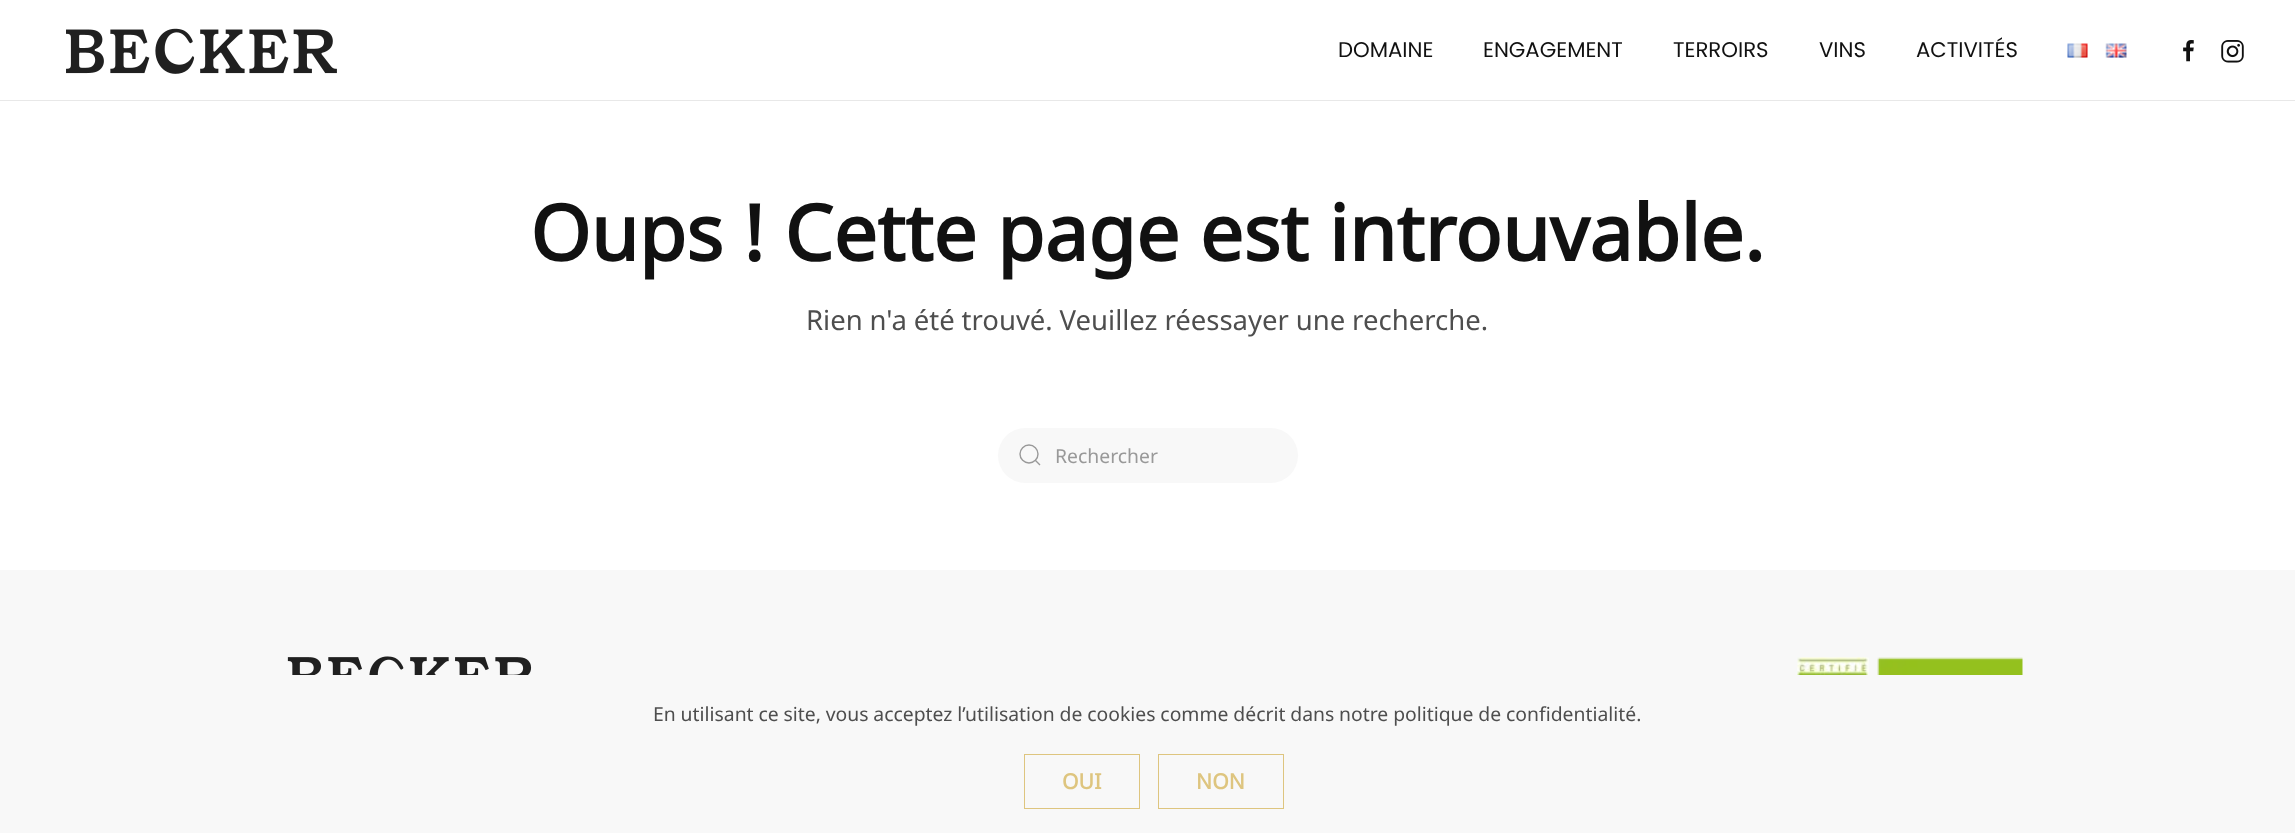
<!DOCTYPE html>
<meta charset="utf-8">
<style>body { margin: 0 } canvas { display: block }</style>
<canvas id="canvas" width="2295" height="833"></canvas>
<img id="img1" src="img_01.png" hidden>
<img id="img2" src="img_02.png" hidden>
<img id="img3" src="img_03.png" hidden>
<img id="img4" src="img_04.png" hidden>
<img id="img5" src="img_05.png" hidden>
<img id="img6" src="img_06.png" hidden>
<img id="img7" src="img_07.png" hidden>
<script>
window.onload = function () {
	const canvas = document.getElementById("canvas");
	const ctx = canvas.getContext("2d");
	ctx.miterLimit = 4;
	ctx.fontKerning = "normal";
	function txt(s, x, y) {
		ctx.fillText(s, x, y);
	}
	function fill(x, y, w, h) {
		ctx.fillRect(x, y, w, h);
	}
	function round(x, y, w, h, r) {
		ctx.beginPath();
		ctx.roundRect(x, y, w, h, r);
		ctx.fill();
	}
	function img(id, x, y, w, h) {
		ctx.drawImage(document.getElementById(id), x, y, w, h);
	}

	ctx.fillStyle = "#FFFFFF";
	fill(0, 0, 2295, 833);
	ctx.fillStyle = "#E8E8E8";
	fill(0, 100, 2295, 1);
	img("img1", 66, 28, 271, 46);
	img("img2", 2067, 43, 21, 15);
	img("img3", 2105, 43, 22, 15);
	img("img4", 2183, 40, 11, 22);
	img("img5", 2221, 40, 23, 23);
	ctx.fillStyle = "#F8F8F8";
	round(998, 428, 300, 55, 27.5);
	ctx.beginPath();
	ctx.arc(1029, 454, 9, 0, Math.PI * 2);
	ctx.strokeStyle = "#999999";
	ctx.lineWidth = 1.4;
	ctx.stroke();
	ctx.beginPath();
	ctx.moveTo(1035, 460);
	ctx.lineTo(1040, 465);
	ctx.closePath();
	ctx.stroke();
	fill(0, 570, 2295, 263);
	img("img6", 287, 656, 245, 19);
	img("img7", 1797, 657, 226, 18);
	ctx.strokeStyle = "#DEC57F";
	ctx.lineWidth = 1;
	ctx.strokeRect(1024.5, 754.5, 115, 54);
	ctx.strokeRect(1158.5, 754.5, 125, 54);
	ctx.font = "21.25px Poppins";
	ctx.fillStyle = "#111111";
	txt("DOMAINE", 1338, 57);
	txt("ENGAGEMENT", 1483, 57);
	txt("TERROIRS", 1673, 57);
	txt("VINS", 1819, 57);
	txt("ACTIVITÉS", 1916, 57);
	ctx.font = "bold 77.5px Noto Sans";
	txt("Oups ! Cette page est introuvable.", 530, 261);
	ctx.font = "27.5px Noto Sans Adlam";
	ctx.fillStyle = "#4E4E4E";
	txt("Rien n'a été trouvé. Veuillez réessayer une recherche.", 806, 330);
	ctx.font = "19.38px Noto Sans Adlam";
	ctx.fillStyle = "#999999";
	txt("Rechercher", 1055, 463);
	ctx.fillStyle = "#4E4E4E";
	txt("En utilisant ce site, vous acceptez l’utilisation de cookies comme décrit dans notre politique de confidentialité.", 653, 721);
	ctx.font = "bold 21.25px Noto Sans";
	ctx.fillStyle = "#DEC57F";
	txt("OUI", 1062, 789);
	txt("NON", 1196, 789);
};
</script>
